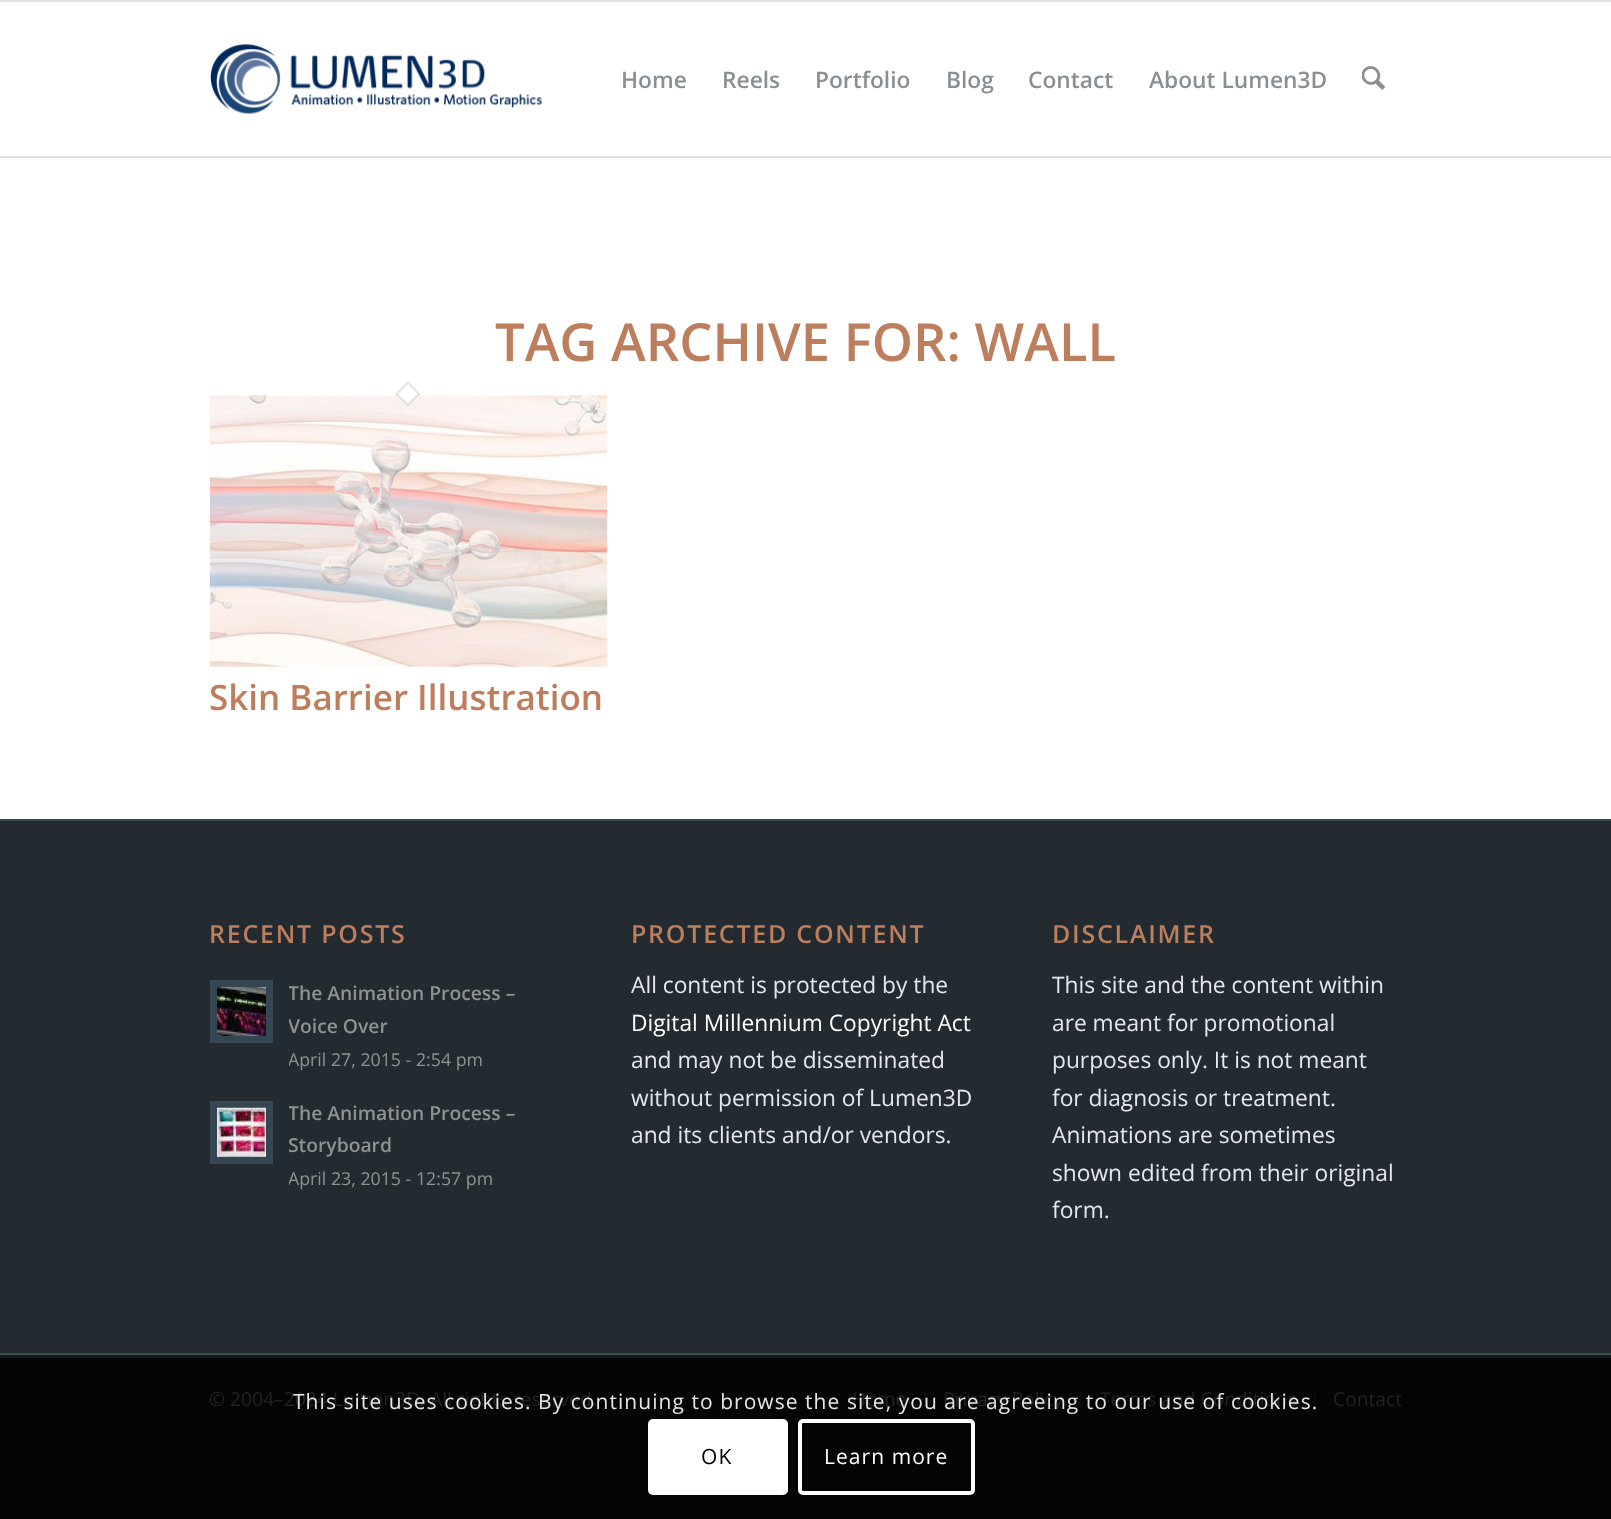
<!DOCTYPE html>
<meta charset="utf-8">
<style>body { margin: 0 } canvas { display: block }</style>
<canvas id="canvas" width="1611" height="1519"></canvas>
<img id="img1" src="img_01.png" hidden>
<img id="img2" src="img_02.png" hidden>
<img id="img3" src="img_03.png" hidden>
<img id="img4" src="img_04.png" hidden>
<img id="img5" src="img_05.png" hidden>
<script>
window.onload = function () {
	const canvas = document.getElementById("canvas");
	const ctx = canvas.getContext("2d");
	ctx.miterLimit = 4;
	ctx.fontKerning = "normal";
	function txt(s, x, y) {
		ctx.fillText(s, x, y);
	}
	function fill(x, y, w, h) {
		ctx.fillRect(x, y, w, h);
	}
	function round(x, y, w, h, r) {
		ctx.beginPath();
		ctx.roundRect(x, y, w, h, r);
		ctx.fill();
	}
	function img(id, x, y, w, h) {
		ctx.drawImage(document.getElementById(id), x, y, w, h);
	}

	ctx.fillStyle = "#030404";
	fill(0, 0, 1611, 1519);
	ctx.fillStyle = "#FFFFFF";
	fill(0, 2, 1611, 817);
	ctx.fillStyle = "#E1E1E1";
	fill(0, 0, 1611, 2);
	fill(0, 156, 1611, 2);
	img("img1", 210, 44, 333, 70);
	img("img2", 1362, 66, 23, 24);
	img("img3", 210, 395, 398, 272);
	ctx.fillStyle = "#FFFFFF";
	ctx.beginPath();
	ctx.moveTo(408, 381.5);
	ctx.lineTo(420, 394);
	ctx.lineTo(408, 406);
	ctx.lineTo(395.5, 394);
	ctx.closePath();
	ctx.fill();
	ctx.beginPath();
	ctx.moveTo(408, 382.5);
	ctx.lineTo(419, 394);
	ctx.lineTo(408, 405);
	ctx.lineTo(396.5, 394);
	ctx.closePath();
	ctx.strokeStyle = "#E1E1E1";
	ctx.lineWidth = 1.8;
	ctx.stroke();
	ctx.fillStyle = "#232B30";
	fill(0, 821, 1611, 532);
	ctx.fillStyle = "#384852";
	fill(0, 819, 1611, 2);
	ctx.fillStyle = "#344652";
	ctx.beginPath();
	ctx.rect(211, 981, 61, 61);
	ctx.fill();
	ctx.strokeStyle = "#384852";
	ctx.lineWidth = 2;
	ctx.stroke();
	img("img4", 217, 987, 49, 49);
	ctx.beginPath();
	ctx.rect(211, 1102, 61, 61);
	ctx.fill();
	ctx.stroke();
	img("img5", 217, 1107, 49, 50);
	ctx.fillStyle = "#161A1C";
	fill(0, 1355, 1611, 3);
	ctx.fillStyle = "#3E4A52";
	fill(0, 1353, 1611, 2);
	ctx.fillStyle = "#090B0C";
	fill(924, 1391, 2, 18);
	fill(1080, 1391, 2, 18);
	fill(1314, 1391, 2, 18);
	ctx.fillStyle = "#FFFFFF";
	round(648, 1419, 140, 76, 5);
	ctx.beginPath();
	ctx.roundRect(800, 1421, 173, 72, 3);
	ctx.strokeStyle = "#FFFFFF";
	ctx.lineWidth = 4;
	ctx.stroke();
	ctx.font = "600 22.75px Open Sans";
	ctx.fillStyle = "#889095";
	txt("Home", 621, 88);
	txt("Reels", 722, 88);
	txt("Portfolio", 815, 88);
	txt("Blog", 946, 88);
	txt("Contact", 1028, 88);
	txt("About Lumen3D", 1149, 88);
	ctx.font = "600 52.5px Open Sans";
	ctx.fillStyle = "#BD7E5E";
	txt("TAG ARCHIVE FOR: WALL", 495, 361);
	ctx.font = "600 35px Open Sans";
	txt("Skin Barrier Illustration", 209, 710);
	ctx.letterSpacing = "1.75px";
	ctx.font = "600 25px Open Sans";
	txt("RECENT POSTS", 209, 943);
	ctx.save();
	ctx.beginPath();
	ctx.rect(289, 977, 271, 99);
	ctx.clip();
	ctx.letterSpacing = "0px";
	ctx.font = "600 19.3px Open Sans";
	ctx.fillStyle = "#8E9392";
	txt("The Animation Process –", 288, 1000);
	txt("Voice Over", 288, 1033);
	ctx.font = "17.75px Open Sans";
	txt("April 27, 2015 - 2:54 pm", 288, 1066);
	ctx.restore();
	ctx.save();
	ctx.beginPath();
	ctx.rect(289, 1097, 271, 98);
	ctx.clip();
	ctx.letterSpacing = "0px";
	ctx.font = "600 19.3px Open Sans";
	ctx.fillStyle = "#8E9392";
	txt("The Animation Process –", 288, 1120);
	txt("Storyboard", 288, 1152);
	ctx.font = "17.75px Open Sans";
	txt("April 23, 2015 - 12:57 pm", 288, 1185);
	ctx.restore();
	txt("PROTECTED CONTENT", 631, 943);
	ctx.letterSpacing = "0px";
	ctx.font = "22.75px Open Sans";
	ctx.fillStyle = "#E4E6F0";
	txt("All content is protected by the", 631, 993);
	ctx.fillStyle = "#FFFFFF";
	txt("Digital Millennium Copyright Act", 631, 1031);
	ctx.fillStyle = "#E4E6F0";
	txt("and may not be disseminated", 631, 1068);
	txt("without permission of Lumen3D", 631, 1106);
	txt("and its clients and/or vendors.", 631, 1143);
	ctx.letterSpacing = "1.75px";
	ctx.font = "600 25px Open Sans";
	ctx.fillStyle = "#BD7E5E";
	txt("DISCLAIMER", 1052, 943);
	ctx.letterSpacing = "0px";
	ctx.font = "22.75px Open Sans";
	ctx.fillStyle = "#E4E6F0";
	txt("This site and the content within", 1052, 993);
	txt("are meant for promotional", 1052, 1031);
	txt("purposes only. It is not meant", 1052, 1068);
	txt("for diagnosis or treatment.", 1052, 1106);
	txt("Animations are sometimes", 1052, 1143);
	txt("shown edited from their original", 1052, 1181);
	txt("form.", 1052, 1218);
	ctx.font = "19.25px Open Sans";
	ctx.fillStyle = "#222324";
	txt("© 2004–2024 Lumen3D. All rights reserved.", 209, 1406);
	txt("Home", 852, 1406);
	txt("Privacy Policy", 943, 1406);
	txt("Terms and Conditions", 1100, 1406);
	txt("Contact", 1333, 1406);
	ctx.letterSpacing = "1.05px";
	ctx.font = "21px Open Sans";
	ctx.fillStyle = "#E6E6E6";
	txt("This site uses cookies. By continuing to browse the site, you are agreeing to our use of cookies.", 293, 1409);
	ctx.fillStyle = "#000000";
	txt("OK", 701, 1464);
	ctx.fillStyle = "#FFFFFF";
	txt("Learn more", 824, 1464);
};
</script>
